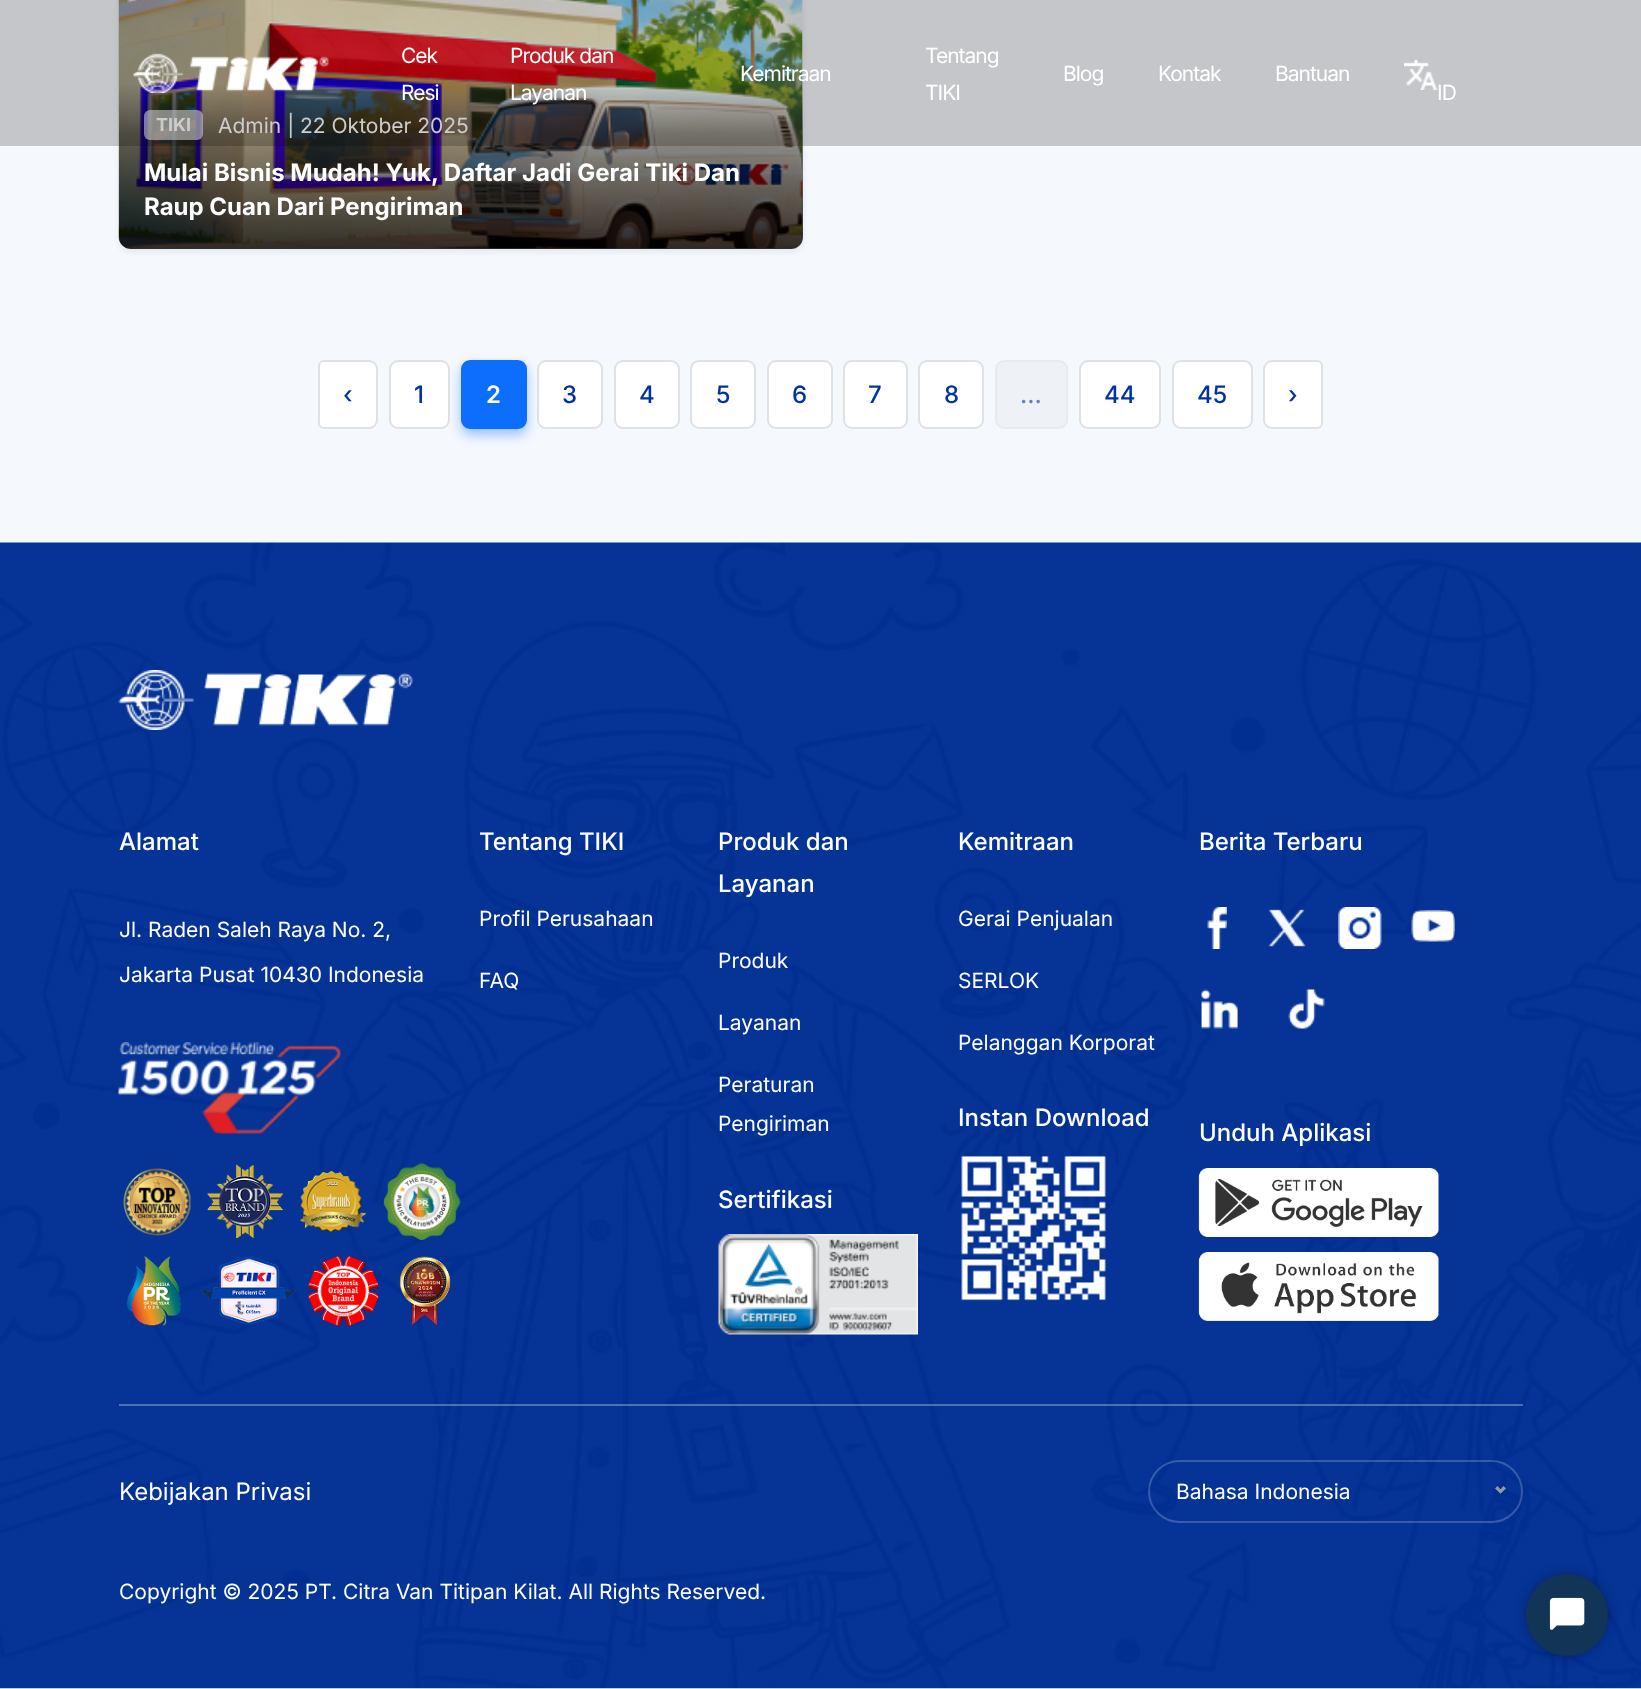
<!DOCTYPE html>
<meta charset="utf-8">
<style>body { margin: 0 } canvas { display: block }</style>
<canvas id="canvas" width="1641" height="1689"></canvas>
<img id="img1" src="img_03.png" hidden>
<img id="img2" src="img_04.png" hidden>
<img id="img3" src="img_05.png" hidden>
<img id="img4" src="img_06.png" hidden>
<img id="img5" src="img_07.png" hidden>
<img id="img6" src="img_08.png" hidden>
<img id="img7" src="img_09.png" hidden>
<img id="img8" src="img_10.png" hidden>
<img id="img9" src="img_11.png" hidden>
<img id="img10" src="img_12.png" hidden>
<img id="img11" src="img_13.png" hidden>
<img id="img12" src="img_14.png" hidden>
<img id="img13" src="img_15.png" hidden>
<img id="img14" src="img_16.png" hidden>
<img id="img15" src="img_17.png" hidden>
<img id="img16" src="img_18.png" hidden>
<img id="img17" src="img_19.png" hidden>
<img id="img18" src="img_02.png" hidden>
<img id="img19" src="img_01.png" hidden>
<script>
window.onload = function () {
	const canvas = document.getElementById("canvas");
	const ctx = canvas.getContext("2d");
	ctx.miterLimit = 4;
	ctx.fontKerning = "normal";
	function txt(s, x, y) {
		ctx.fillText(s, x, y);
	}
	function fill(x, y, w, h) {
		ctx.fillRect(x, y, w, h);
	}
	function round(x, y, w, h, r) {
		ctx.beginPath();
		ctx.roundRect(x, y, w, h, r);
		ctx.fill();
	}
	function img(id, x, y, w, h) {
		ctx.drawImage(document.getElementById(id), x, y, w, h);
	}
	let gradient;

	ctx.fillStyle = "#FFFFFF";
	fill(0, 0, 1641, 1689);
	ctx.fillStyle = "#F5F8FD";
	fill(0, 0, 1641, 543);
	ctx.fillStyle = "rgba(0, 0, 0, 0.07)";
	ctx.filter = "blur(3px)";
	ctx.beginPath();
	ctx.roundRect(119, -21, 684, 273, 12);
	ctx.fill();
	ctx.filter = "none";
	img("img1", 118, 0, 685, 249);
	gradient = ctx.createLinearGradient(461, 249, 461, 84);
	gradient.addColorStop(0, "rgba(0, 0, 0, 0.8)");
	gradient.addColorStop(0.7, "rgba(0, 0, 0, 0.4)");
	gradient.addColorStop(1, "rgba(0, 0, 0, 0)");
	ctx.fillStyle = gradient;
	ctx.beginPath();
	ctx.roundRect(119, 84, 684, 165, [0, 0, 12, 12]);
	ctx.fill();
	ctx.fillStyle = "rgba(255, 255, 255, 0.6)";
	round(144, 110, 59, 30, 6);
	ctx.fillStyle = "#FFFFFF";
	ctx.beginPath();
	ctx.roundRect(319, 361, 58, 67, [5, 8, 8, 5]);
	ctx.fill();
	ctx.strokeStyle = "#DEE2E6";
	ctx.lineWidth = 2;
	ctx.stroke();
	ctx.beginPath();
	ctx.roundRect(390, 361, 59, 67, 8);
	ctx.fill();
	ctx.stroke();
	ctx.beginPath();
	ctx.roundRect(538, 361, 64, 67, 8);
	ctx.fill();
	ctx.stroke();
	ctx.fillStyle = "rgba(13, 110, 253, 0.4)";
	ctx.filter = "blur(6px)";
	ctx.beginPath();
	ctx.roundRect(461, 366, 66, 69, 9);
	ctx.fill();
	ctx.filter = "none";
	ctx.fillStyle = "#0D6EFD";
	ctx.beginPath();
	ctx.roundRect(462, 361, 64, 67, 8);
	ctx.fill();
	ctx.strokeStyle = "#0D6EFD";
	ctx.stroke();
	ctx.fillStyle = "#FFFFFF";
	ctx.beginPath();
	ctx.roundRect(615, 361, 64, 67, 8);
	ctx.fill();
	ctx.strokeStyle = "#DEE2E6";
	ctx.stroke();
	ctx.beginPath();
	ctx.roundRect(691, 361, 64, 67, 8);
	ctx.fill();
	ctx.stroke();
	ctx.beginPath();
	ctx.roundRect(768, 361, 64, 67, 8);
	ctx.fill();
	ctx.stroke();
	ctx.beginPath();
	ctx.roundRect(844, 361, 63, 67, 8);
	ctx.fill();
	ctx.stroke();
	ctx.beginPath();
	ctx.roundRect(919, 361, 64, 67, 8);
	ctx.fill();
	ctx.stroke();
	ctx.fillStyle = "#EEF1F5";
	ctx.beginPath();
	ctx.roundRect(996, 361, 71, 67, 8);
	ctx.fill();
	ctx.strokeStyle = "#E7EBEF";
	ctx.stroke();
	ctx.fillStyle = "#FFFFFF";
	ctx.beginPath();
	ctx.roundRect(1080, 361, 80, 67, 8);
	ctx.fill();
	ctx.strokeStyle = "#DEE2E6";
	ctx.stroke();
	ctx.beginPath();
	ctx.roundRect(1173, 361, 79, 67, 8);
	ctx.fill();
	ctx.stroke();
	ctx.beginPath();
	ctx.roundRect(1264, 361, 58, 67, [8, 5, 5, 8]);
	ctx.fill();
	ctx.stroke();
	img("img2", 0, 542, 1641, 1147);
	img("img3", 118, 670, 295, 60);
	img("img4", 118, 1042, 223, 92);
	img("img5", 123, 1163, 338, 77);
	img("img6", 126, 1255, 325, 72);
	img("img7", 718, 1234, 200, 101);
	img("img8", 961, 1155, 145, 146);
	img("img9", 1207, 907, 20, 42);
	img("img10", 1268, 909, 38, 38);
	img("img11", 1338, 907, 44, 42);
	img("img12", 1411, 910, 44, 32);
	img("img13", 1201, 989, 37, 40);
	img("img14", 1288, 989, 37, 40);
	img("img15", 1198, 1168, 241, 69);
	img("img16", 1198, 1252, 241, 69);
	ctx.fillStyle = "rgba(255, 255, 255, 0.3)";
	fill(119, 1404, 1404, 2);
	ctx.beginPath();
	ctx.roundRect(1149, 1461, 373, 61, 30.5);
	ctx.strokeStyle = "rgba(255, 255, 255, 0.2)";
	ctx.stroke();
	ctx.fillStyle = "#999999";
	ctx.beginPath();
	ctx.moveTo(1503.5, 1486);
	ctx.lineTo(1506, 1488.5);
	ctx.lineTo(1500.5, 1493.5);
	ctx.lineTo(1498.5, 1491.5);
	ctx.closePath();
	ctx.fill();
	ctx.beginPath();
	ctx.moveTo(1497.5, 1486);
	ctx.lineTo(1502.5, 1491.5);
	ctx.lineTo(1500.5, 1493.5);
	ctx.lineTo(1495, 1488.5);
	ctx.closePath();
	ctx.fill();
	ctx.fillStyle = "rgba(0, 0, 0, 0.3)";
	ctx.filter = "blur(6px)";
	ctx.beginPath();
	ctx.roundRect(1526, 1574, 82, 82, 41);
	ctx.fill();
	ctx.filter = "none";
	ctx.fillStyle = "#123456";
	ctx.beginPath();
	ctx.arc(1567, 1615, 41, 0, Math.PI * 2);
	ctx.fill();
	img("img17", 1549, 1597, 36, 33);
	ctx.font = "bold 18px Inter";
	ctx.fillStyle = "#FFFFFF";
	txt("TIKI", 156, 131);
	ctx.font = "21px Inter";
	txt("Admin | 22 Oktober 2025", 218, 133);
	ctx.fillStyle = "rgba(0, 0, 0, 0.2)";
	fill(0, 0, 1641, 146);
	ctx.letterSpacing = "-1px";
	ctx.fillStyle = "#FFFFFF";
	txt("ID", 1437, 100);
	img("img18", 1404, 59, 34, 31);
	txt("Bantuan", 1275, 81);
	txt("Kontak", 1158, 81);
	txt("Blog", 1063, 81);
	txt("TIKI", 925, 100);
	txt("Tentang", 925, 63);
	txt("Kemitraan", 740, 81);
	txt("Layanan", 510, 100);
	txt("Produk dan", 510, 63);
	txt("Resi", 401, 100);
	txt("Cek", 401, 63);
	img("img19", 133, 53, 196, 40);
	ctx.letterSpacing = "0px";
	ctx.font = "bold 24px Inter";
	txt("Mulai Bisnis Mudah! Yuk, Daftar Jadi Gerai Tiki Dan", 144, 181);
	txt("Raup Cuan Dari Pengiriman", 144, 215);
	ctx.font = "500 24px Inter";
	ctx.fillStyle = "#0033A0";
	txt("‹", 343, 403);
	txt("1", 414, 403);
	ctx.font = "600 24px Inter";
	ctx.fillStyle = "#FFFFFF";
	txt("2", 486, 403);
	ctx.font = "500 24px Inter";
	ctx.fillStyle = "#0033A0";
	txt("3", 562, 403);
	txt("4", 639, 403);
	txt("5", 716, 403);
	txt("6", 792, 403);
	txt("7", 868, 403);
	txt("8", 944, 403);
	ctx.fillStyle = "#6282C5";
	txt("...", 1020, 403);
	ctx.fillStyle = "#0033A0";
	txt("44", 1104, 403);
	txt("45", 1197, 403);
	txt("›", 1288, 403);
	ctx.fillStyle = "#FFFFFF";
	txt("Alamat", 119, 850);
	ctx.font = "21px Inter";
	txt("Jl. Raden Saleh Raya No. 2,", 119, 937);
	txt("Jakarta Pusat 10430 Indonesia", 119, 982);
	ctx.font = "500 24px Inter";
	txt("Tentang TIKI", 479, 850);
	ctx.font = "21px Inter";
	txt("Profil Perusahaan", 479, 926);
	txt("FAQ", 479, 988);
	ctx.font = "500 24px Inter";
	txt("Produk dan", 718, 850);
	txt("Layanan", 718, 892);
	ctx.font = "21px Inter";
	txt("Produk", 718, 968);
	txt("Layanan", 718, 1030);
	txt("Peraturan", 718, 1092);
	txt("Pengiriman", 718, 1131);
	ctx.font = "500 24px Inter";
	txt("Sertifikasi", 718, 1208);
	txt("Kemitraan", 958, 850);
	ctx.font = "21px Inter";
	txt("Gerai Penjualan", 958, 926);
	txt("SERLOK", 958, 988);
	txt("Pelanggan Korporat", 958, 1050);
	ctx.font = "500 24px Inter";
	txt("Instan Download", 958, 1126);
	txt("Berita Terbaru", 1199, 850);
	txt("Unduh Aplikasi", 1199, 1141);
	ctx.font = "24px Inter";
	txt("Kebijakan Privasi", 119, 1500);
	ctx.font = "21px Inter";
	txt("Bahasa Indonesia", 1176, 1499);
	txt("Copyright © 2025 PT. Citra Van Titipan Kilat. All Rights Reserved.", 119, 1599);
};
</script>
